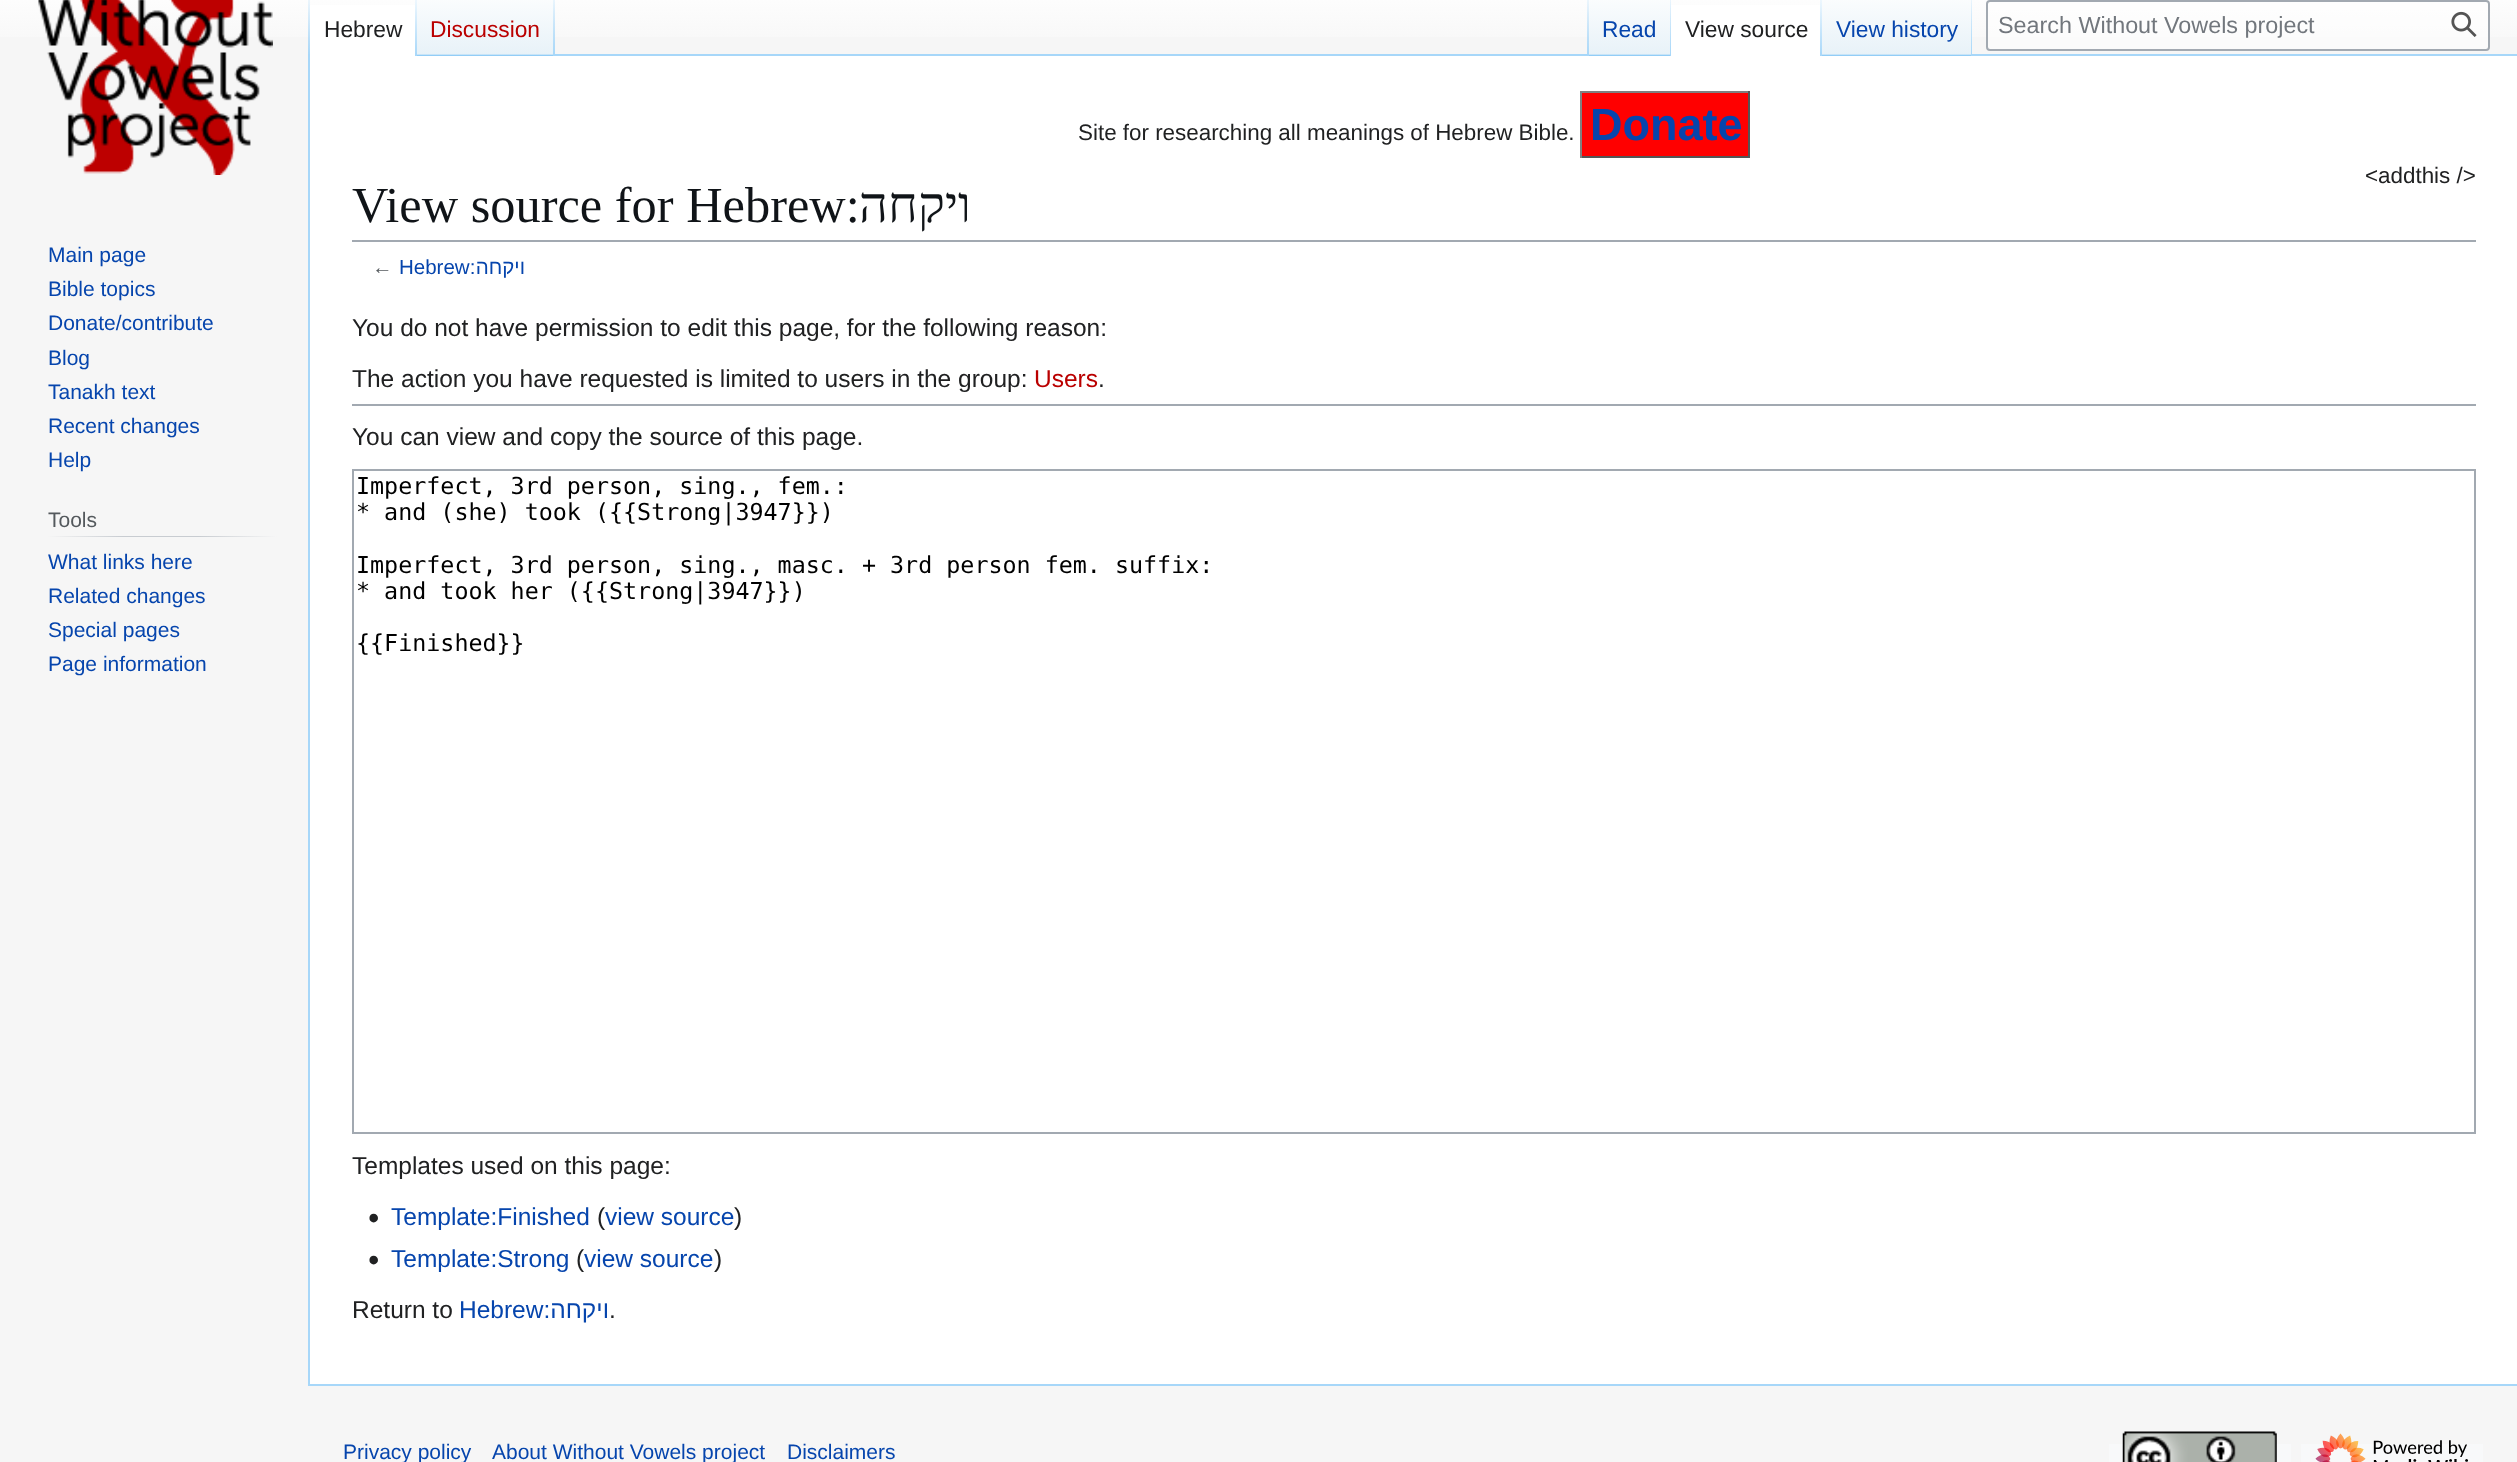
<!DOCTYPE html>
<meta charset="utf-8">
<style>body { margin: 0 } canvas { display: block }</style>
<canvas id="canvas" width="2517" height="1462"></canvas>
<img id="img1" src="img_01.png" hidden>
<img id="img2" src="img_02.png" hidden>
<img id="img3" src="img_03.png" hidden>
<img id="img4" src="img_04.png" hidden>
<img id="img5" src="img_05.png" hidden>
<script>
window.onload = function () {
	const canvas = document.getElementById("canvas");
	const ctx = canvas.getContext("2d");
	ctx.miterLimit = 4;
	ctx.fontKerning = "normal";
	function txt(s, x, y) {
		ctx.fillText(s, x, y);
	}
	function fill(x, y, w, h) {
		ctx.fillRect(x, y, w, h);
	}
	function img(id, x, y, w, h) {
		ctx.drawImage(document.getElementById(id), x, y, w, h);
	}
	let gradient;

	ctx.fillStyle = "#F6F6F6";
	fill(0, 0, 2517, 1462);
	gradient = ctx.createLinearGradient(1259, -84, 1259, 56);
	gradient.addColorStop(0.5, "#FFFFFF");
	gradient.addColorStop(1, "#F6F6F6");
	ctx.fillStyle = gradient;
	fill(0, 0, 2517, 37);
	ctx.fillStyle = "#A7D7F9";
	fill(308, 1384, 2209, 2);
	fill(308, 54, 2, 1332);
	gradient = ctx.createLinearGradient(309, -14, 309, 56);
	gradient.addColorStop(0, "rgba(167, 215, 249, 0)");
	gradient.addColorStop(1, "#A7D7F9");
	ctx.fillStyle = gradient;
	fill(308, 0, 2, 56);
	ctx.fillStyle = "#FFFFFF";
	fill(310, 5, 105, 51);
	gradient = ctx.createLinearGradient(416, -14, 416, 56);
	gradient.addColorStop(0, "#FFFFFF");
	gradient.addColorStop(1, "#A7D7F9");
	ctx.fillStyle = gradient;
	fill(415, 0, 2, 56);
	gradient = ctx.createLinearGradient(486, 56, 486, -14);
	gradient.addColorStop(0, "#77C1F6");
	gradient.addColorStop(0.03, "#E8F2F8");
	gradient.addColorStop(1, "#FFFFFF");
	ctx.fillStyle = gradient;
	fill(417, 0, 138, 56);
	gradient = ctx.createLinearGradient(554, -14, 554, 56);
	gradient.addColorStop(0, "rgba(167, 215, 249, 0)");
	gradient.addColorStop(1, "#A7D7F9");
	ctx.fillStyle = gradient;
	fill(553, 0, 2, 56);
	ctx.fillStyle = "#A7D7F9";
	fill(555, 54, 1962, 2);
	gradient = ctx.createLinearGradient(1588, -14, 1588, 56);
	gradient.addColorStop(0, "rgba(167, 215, 249, 0)");
	gradient.addColorStop(1, "#A7D7F9");
	ctx.fillStyle = gradient;
	fill(1587, 0, 2, 56);
	gradient = ctx.createLinearGradient(1630, 56, 1630, -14);
	gradient.addColorStop(0, "#77C1F6");
	gradient.addColorStop(0.03, "#E8F2F8");
	gradient.addColorStop(1, "#FFFFFF");
	ctx.fillStyle = gradient;
	fill(1589, 0, 82, 56);
	gradient = ctx.createLinearGradient(1670, -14, 1670, 56);
	gradient.addColorStop(0, "rgba(167, 215, 249, 0)");
	gradient.addColorStop(1, "#A7D7F9");
	ctx.fillStyle = gradient;
	fill(1670, 0, 1, 56);
	ctx.fillStyle = "#FFFFFF";
	fill(1671, 5, 149, 51);
	gradient = ctx.createLinearGradient(1821, -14, 1821, 56);
	gradient.addColorStop(0, "#FFFFFF");
	gradient.addColorStop(1, "#A7D7F9");
	ctx.fillStyle = gradient;
	fill(1820, 0, 2, 56);
	gradient = ctx.createLinearGradient(1897, 56, 1897, -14);
	gradient.addColorStop(0, "#77C1F6");
	gradient.addColorStop(0.03, "#E8F2F8");
	gradient.addColorStop(1, "#FFFFFF");
	ctx.fillStyle = gradient;
	fill(1822, 0, 150, 56);
	gradient = ctx.createLinearGradient(1971, -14, 1971, 56);
	gradient.addColorStop(0, "rgba(167, 215, 249, 0)");
	gradient.addColorStop(1, "#A7D7F9");
	ctx.fillStyle = gradient;
	fill(1971, 0, 1, 56);
	ctx.fillStyle = "rgba(255, 255, 255, 0.5)";
	ctx.beginPath();
	ctx.roundRect(1987, 1, 502, 49, 3);
	ctx.fill();
	ctx.strokeStyle = "#A2A9B1";
	ctx.lineWidth = 2;
	ctx.stroke();
	img("img1", 2451, 11, 26, 26);
	img("img2", 38, 0, 235, 175);
	gradient = ctx.createLinearGradient(47, 536, 277, 536);
	gradient.addColorStop(0, "#F6F6F6");
	gradient.addColorStop(0.33, "#C8CCD1");
	gradient.addColorStop(0.66, "#C8CCD1");
	gradient.addColorStop(1, "#F6F6F6");
	ctx.fillStyle = gradient;
	fill(47, 536, 230, 1);
	ctx.fillStyle = "#FFFFFF";
	fill(310, 56, 2207, 1328);
	ctx.fillStyle = "#FF0000";
	fill(1582, 93, 166, 63);
	ctx.fillStyle = "#808080";
	fill(1580, 91, 170, 2);
	ctx.fillStyle = "#555555";
	fill(1748, 91, 2, 67);
	fill(1580, 156, 170, 2);
	ctx.fillStyle = "#808080";
	fill(1580, 91, 2, 67);
	ctx.fillStyle = "#A2A9B1";
	fill(352, 240, 2124, 2);
	fill(352, 404, 2124, 2);
	ctx.strokeRect(353, 470, 2122, 663);
	img("img3", 369, 1213, 9, 10);
	img("img3", 369, 1255, 9, 10);
	ctx.fillStyle = "#F8F9FA";
	fill(2109, 1444, 182, 18);
	img("img4", 2122, 1431, 155, 31);
	fill(2301, 1444, 182, 18);
	img("img5", 2315, 1433, 153, 29);
	ctx.font = "22.75px Liberation Sans";
	ctx.fillStyle = "#202122";
	txt("Hebrew", 324, 37);
	ctx.fillStyle = "#BA0000";
	txt("Discussion", 430, 37);
	ctx.fillStyle = "#0645AD";
	txt("Read", 1602, 37);
	ctx.fillStyle = "#202122";
	txt("View source", 1685, 37);
	ctx.fillStyle = "#0645AD";
	txt("View history", 1836, 37);
	ctx.font = "23.35px Liberation Sans";
	ctx.fillStyle = "#72777D";
	txt("Search Without Vowels project", 1998, 33);
	ctx.font = "21px Liberation Sans";
	ctx.fillStyle = "#0645AD";
	txt("Main page", 48, 262);
	txt("Bible topics", 48, 296);
	txt("Donate/contribute", 48, 330);
	txt("Blog", 48, 365);
	txt("Tanakh text", 48, 399);
	txt("Recent changes", 48, 433);
	txt("Help", 48, 467);
	ctx.fillStyle = "#54595D";
	txt("Tools", 48, 527);
	ctx.fillStyle = "#0645AD";
	txt("What links here", 48, 569);
	txt("Related changes", 48, 603);
	txt("Special pages", 48, 637);
	txt("Page information", 48, 671);
	ctx.font = "22.4px Liberation Sans";
	ctx.fillStyle = "#202122";
	txt("Site for researching all meanings of Hebrew Bible.", 1078, 140);
	ctx.font = "bold 45px Liberation Sans";
	ctx.fillStyle = "#0645AD";
	txt("Donate", 1590, 140);
	ctx.font = "22.4px Liberation Sans";
	ctx.fillStyle = "#202122";
	txt("<addthis />", 2365, 183);
	ctx.font = "50.4px Liberation Serif";
	ctx.fillStyle = "#101418";
	txt("View source for Hebrew:", 352, 222);
	ctx.direction = "rtl";
	txt("ויקחה", 971, 222);
	ctx.direction = "ltr";
	ctx.font = "20.5px Liberation Sans";
	ctx.fillStyle = "#54595D";
	txt("←", 372, 274);
	ctx.fillStyle = "#0645AD";
	txt("Hebrew:", 399, 274);
	ctx.direction = "rtl";
	txt("ויקחה", 525, 274);
	ctx.direction = "ltr";
	ctx.font = "24.5px Liberation Sans";
	ctx.fillStyle = "#202122";
	txt("You do not have permission to edit this page, for the following reason:", 352, 336);
	txt("The action you have requested is limited to users in the group:", 352, 387);
	ctx.fillStyle = "#BA0000";
	txt("Users", 1034, 387);
	ctx.fillStyle = "#202122";
	txt(".", 1098, 387);
	txt("You can view and copy the source of this page.", 352, 445);
	ctx.font = "23.35px DejaVu Sans Mono";
	ctx.fillStyle = "#000000";
	txt("Imperfect, 3rd person, sing., fem.:", 356, 494);
	txt("* and (she) took ({{Strong|3947}})", 356, 520);
	txt("Imperfect, 3rd person, sing., masc. + 3rd person fem. suffix:", 356, 573);
	txt("* and took her ({{Strong|3947}})", 356, 599);
	txt("{{Finished}}", 356, 651);
	ctx.font = "24.5px Liberation Sans";
	ctx.fillStyle = "#202122";
	txt("Templates used on this page:", 352, 1174);
	ctx.fillStyle = "#0645AD";
	txt("Template:Finished", 391, 1225);
	ctx.fillStyle = "#202122";
	txt("(", 597, 1225);
	ctx.fillStyle = "#0645AD";
	txt("view source", 605, 1225);
	ctx.fillStyle = "#202122";
	txt(")", 734, 1225);
	ctx.fillStyle = "#0645AD";
	txt("Template:Strong", 391, 1267);
	ctx.fillStyle = "#202122";
	txt("(", 576, 1267);
	ctx.fillStyle = "#0645AD";
	txt("view source", 584, 1267);
	ctx.fillStyle = "#202122";
	txt(")", 714, 1267);
	txt("Return to", 352, 1318);
	ctx.fillStyle = "#0645AD";
	txt("Hebrew:", 459, 1318);
	ctx.direction = "rtl";
	txt("ויקחה", 609, 1318);
	ctx.direction = "ltr";
	ctx.fillStyle = "#202122";
	txt(".", 609, 1318);
	ctx.font = "21px Liberation Sans";
	ctx.fillStyle = "#0645AD";
	txt("Privacy policy", 343, 1459);
	txt("About Without Vowels project", 492, 1459);
	txt("Disclaimers", 787, 1459);
};
</script>
